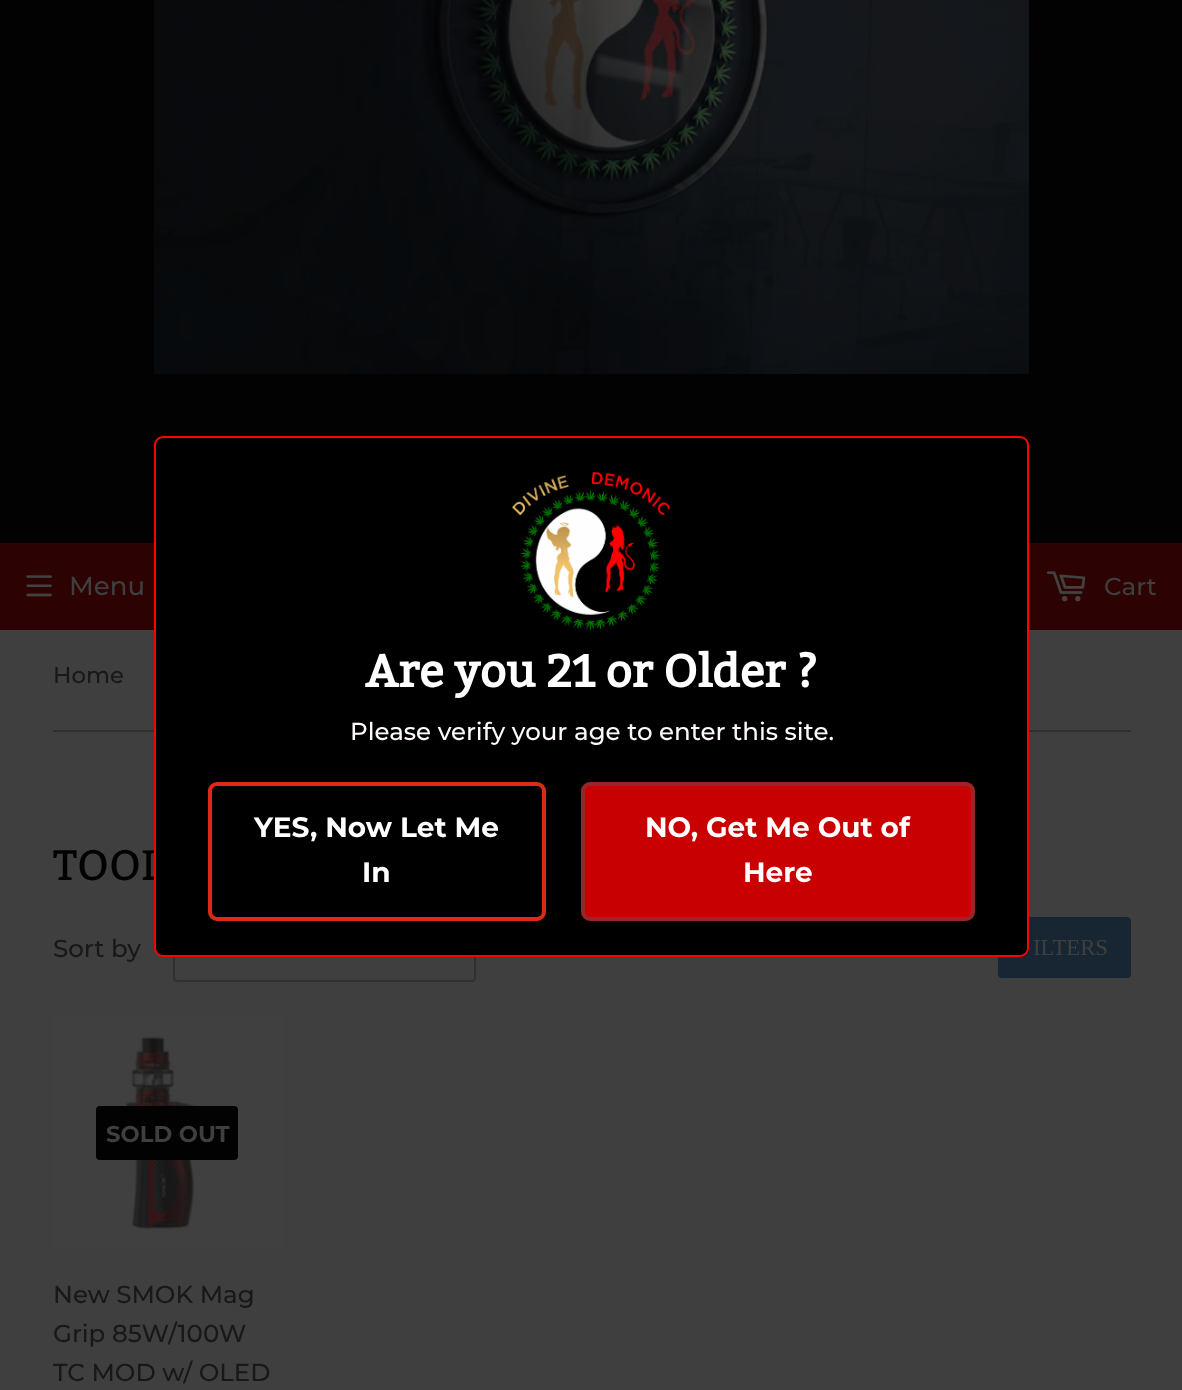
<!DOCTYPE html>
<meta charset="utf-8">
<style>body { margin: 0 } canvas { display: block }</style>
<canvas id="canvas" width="1182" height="1390"></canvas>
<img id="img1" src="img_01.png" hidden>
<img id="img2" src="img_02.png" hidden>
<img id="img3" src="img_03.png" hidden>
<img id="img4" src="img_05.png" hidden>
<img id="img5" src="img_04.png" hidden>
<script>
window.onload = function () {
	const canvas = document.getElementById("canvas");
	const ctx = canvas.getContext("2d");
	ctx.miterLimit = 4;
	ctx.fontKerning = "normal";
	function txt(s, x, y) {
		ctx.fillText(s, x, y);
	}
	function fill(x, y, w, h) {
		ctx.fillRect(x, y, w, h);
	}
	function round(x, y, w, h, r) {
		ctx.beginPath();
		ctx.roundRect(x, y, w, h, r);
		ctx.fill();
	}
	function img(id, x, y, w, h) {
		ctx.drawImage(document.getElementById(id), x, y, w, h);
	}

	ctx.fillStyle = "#3F3F3F";
	fill(0, 0, 1182, 1390);
	ctx.fillStyle = "#020202";
	fill(0, 0, 1182, 543);
	img("img1", 154, 0, 875, 374);
	ctx.fillStyle = "#2D0202";
	fill(0, 543, 1182, 87);
	img("img2", 26, 575, 26, 22);
	img("img3", 1046, 571, 40, 31);
	ctx.fillStyle = "#303030";
	fill(53, 730, 1078, 2);
	ctx.beginPath();
	ctx.roundRect(174, 918, 301, 63, 3);
	ctx.strokeStyle = "#303030";
	ctx.lineWidth = 2;
	ctx.stroke();
	ctx.fillStyle = "#172632";
	round(998, 917, 133, 61, 4);
	img("img4", 52, 1018, 232, 229);
	ctx.fillStyle = "#020202";
	round(96, 1106, 142, 54, 4);
	ctx.font = "500 26px Montserrat";
	ctx.fillStyle = "#3F3F3F";
	txt("Menu", 69, 595);
	ctx.font = "500 24.5px Montserrat";
	txt("Cart", 1104, 595);
	ctx.font = "500 22.75px Montserrat";
	ctx.fillStyle = "#181818";
	txt("Home", 53, 683);
	ctx.font = "42.5px Bitter";
	ctx.fillStyle = "#020202";
	txt("TOOL", 53, 880);
	ctx.fillStyle = "#000000";
	ctx.beginPath();
	ctx.roundRect(155, 437, 873, 519, 8);
	ctx.fill();
	ctx.strokeStyle = "#FF0000";
	ctx.stroke();
	ctx.fillStyle = "#C80002";
	ctx.beginPath();
	ctx.roundRect(583, 784, 390, 135, 7);
	ctx.fill();
	ctx.strokeStyle = "#962627";
	ctx.lineWidth = 4;
	ctx.stroke();
	ctx.font = "bold 28px Montserrat";
	ctx.fillStyle = "#FFFFFF";
	txt("Here", 743, 882);
	txt("NO, Get Me Out of", 645, 837);
	ctx.beginPath();
	ctx.roundRect(210, 784, 334, 135, 7);
	ctx.strokeStyle = "#DB2A15";
	ctx.stroke();
	txt("In", 362, 882);
	txt("YES, Now Let Me", 254, 837);
	ctx.font = "500 24.5px Montserrat";
	ctx.fillStyle = "#FFF9F9";
	txt("Please verify your age to enter this site.", 350, 740);
	ctx.font = "bold 45.5px Bitter";
	ctx.fillStyle = "#FFFFFF";
	txt("Are you 21 or Older ?", 365, 687);
	img("img5", 512, 471, 158, 160);
	ctx.font = "500 24.5px Montserrat";
	ctx.fillStyle = "#181818";
	txt("Sort by", 53, 957);
	ctx.font = "22.75px Liberation Serif";
	ctx.fillStyle = "#3F3F3F";
	txt("ILTERS", 1033, 955);
	ctx.font = "bold 22.75px Montserrat";
	txt("SOLD OUT", 106, 1142);
	ctx.font = "500 24.5px Montserrat";
	ctx.fillStyle = "#181818";
	txt("New SMOK Mag", 53, 1303);
	txt("Grip 85W/100W", 53, 1342);
	txt("TC MOD w/ OLED", 53, 1381);
};
</script>
